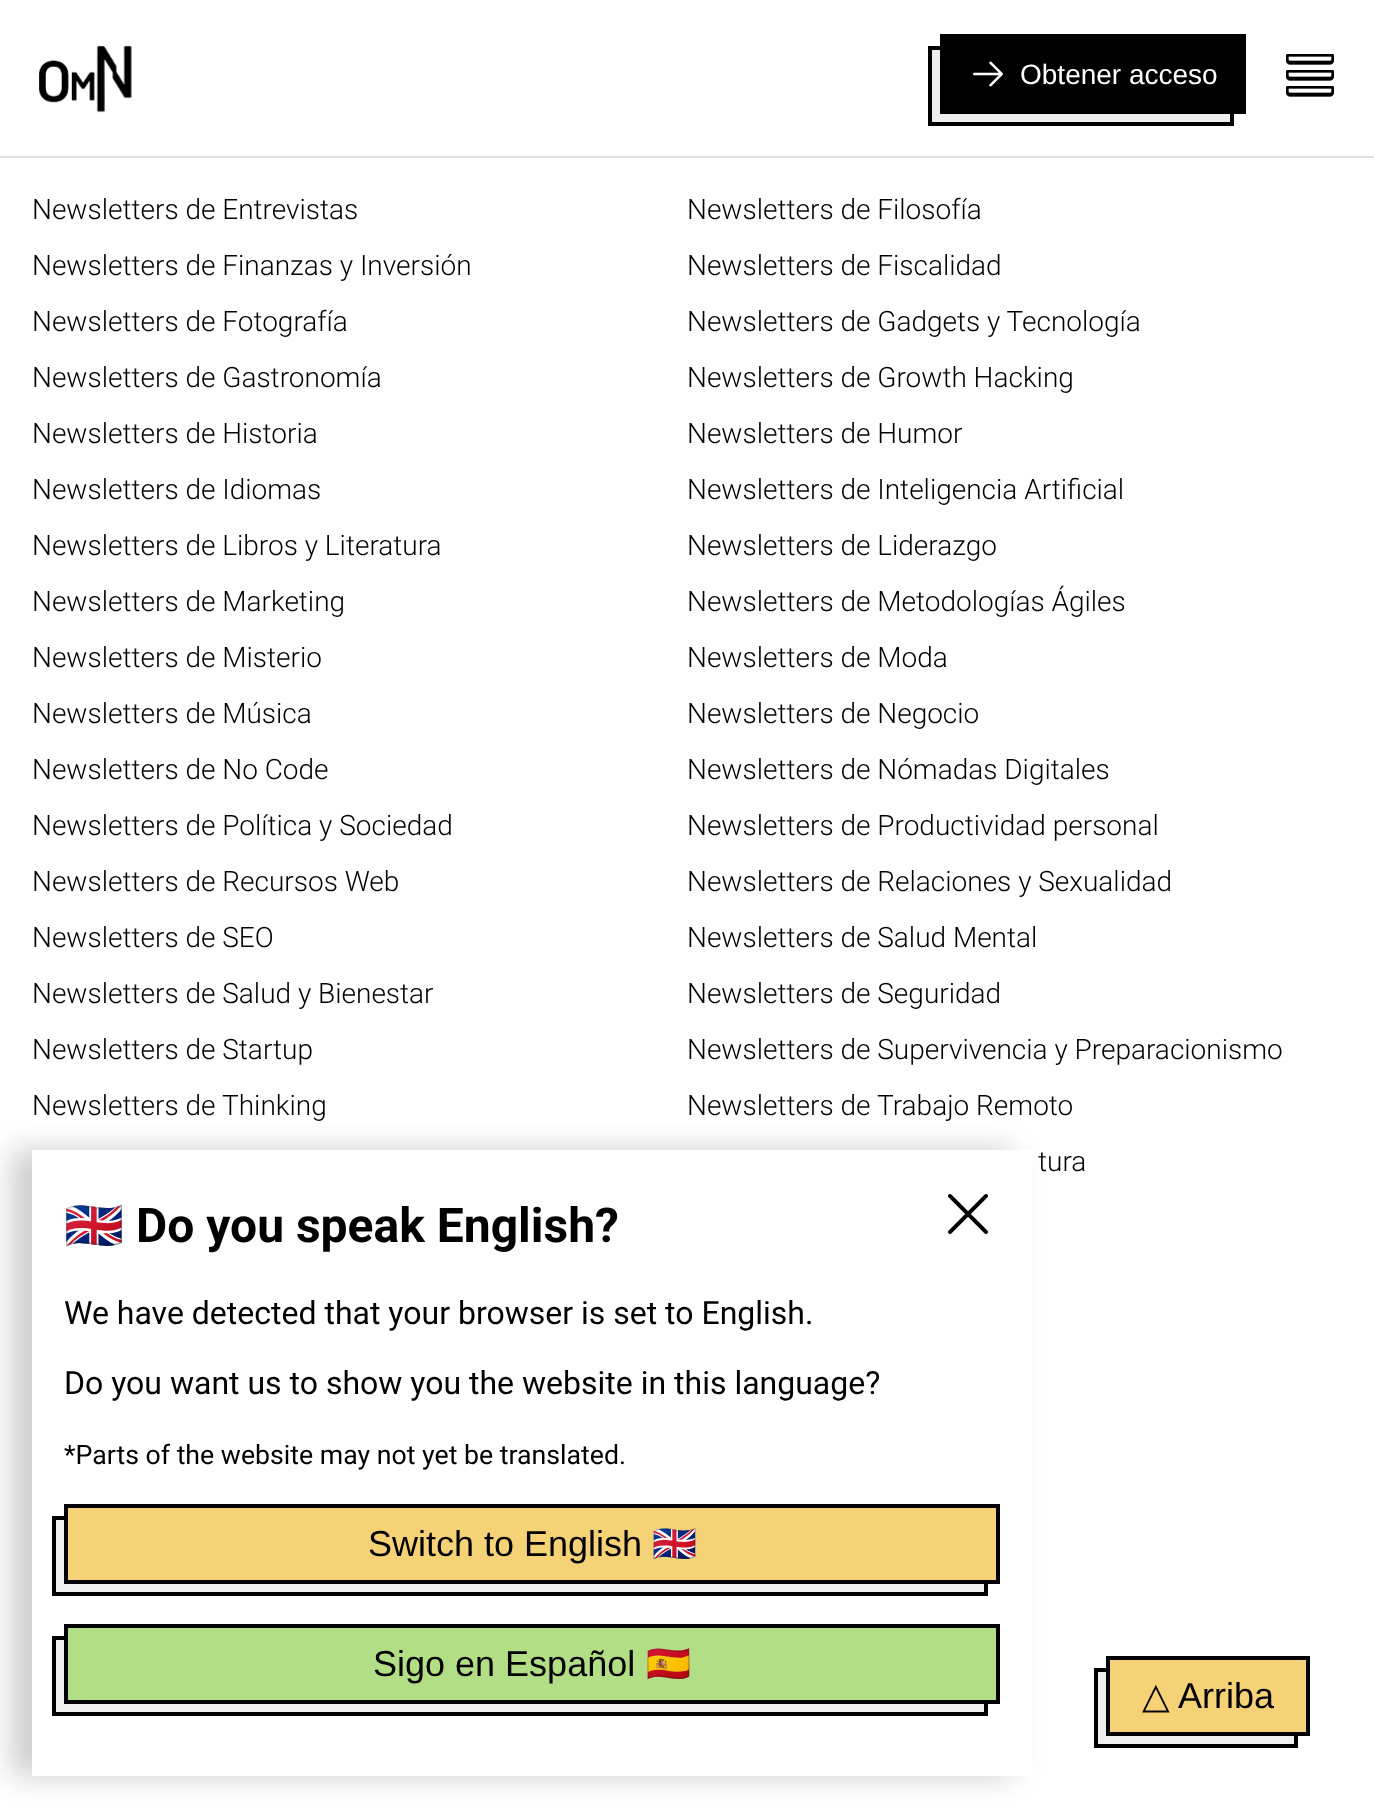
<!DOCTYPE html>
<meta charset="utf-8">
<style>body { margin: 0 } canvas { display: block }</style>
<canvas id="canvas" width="1374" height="1808"></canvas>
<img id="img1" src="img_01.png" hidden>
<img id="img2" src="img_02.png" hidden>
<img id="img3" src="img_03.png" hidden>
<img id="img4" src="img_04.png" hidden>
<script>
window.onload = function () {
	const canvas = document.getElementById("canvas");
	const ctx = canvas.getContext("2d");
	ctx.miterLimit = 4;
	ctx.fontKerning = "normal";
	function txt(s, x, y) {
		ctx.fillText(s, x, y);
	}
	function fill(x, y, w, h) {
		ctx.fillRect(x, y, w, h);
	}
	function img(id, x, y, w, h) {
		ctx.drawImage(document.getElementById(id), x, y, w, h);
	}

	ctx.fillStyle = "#FFFFFF";
	fill(0, 0, 1374, 1808);
	ctx.fillStyle = "#E0E0E0";
	fill(0, 156, 1374, 2);
	img("img1", 39, 45, 93, 68);
	ctx.fillStyle = "#EFEFEF";
	ctx.beginPath();
	ctx.rect(930, 48, 302, 76);
	ctx.fill();
	ctx.strokeStyle = "#000000";
	ctx.lineWidth = 4;
	ctx.stroke();
	ctx.fillStyle = "#000000";
	fill(940, 34, 306, 80);
	img("img2", 973, 61, 30, 26);
	img("img3", 1286, 54, 48, 43);
	ctx.fillStyle = "#EFEFEF";
	ctx.beginPath();
	ctx.rect(1096, 1670, 200, 76);
	ctx.fill();
	ctx.stroke();
	ctx.fillStyle = "#F6D277";
	ctx.beginPath();
	ctx.rect(1108, 1658, 200, 76);
	ctx.fill();
	ctx.stroke();
	ctx.fillStyle = "rgba(0, 0, 0, 0.2)";
	ctx.filter = "blur(15px)";
	ctx.beginPath();
	ctx.rect(12, 1150, 1000, 626);
	ctx.fill();
	ctx.filter = "none";
	ctx.fillStyle = "#FFFFFF";
	fill(32, 1150, 1000, 626);
	img("img4", 948, 1194, 40, 40);
	ctx.fillStyle = "#EFEFEF";
	ctx.beginPath();
	ctx.rect(54, 1518, 932, 76);
	ctx.fill();
	ctx.stroke();
	ctx.fillStyle = "#F6D277";
	ctx.beginPath();
	ctx.rect(66, 1506, 932, 76);
	ctx.fill();
	ctx.stroke();
	ctx.fillStyle = "#EFEFEF";
	ctx.beginPath();
	ctx.rect(54, 1638, 932, 76);
	ctx.fill();
	ctx.stroke();
	ctx.fillStyle = "#B2DF85";
	ctx.beginPath();
	ctx.rect(66, 1626, 932, 76);
	ctx.fill();
	ctx.stroke();
	ctx.font = "28px Liberation Sans";
	ctx.fillStyle = "#FFFFFF";
	txt("Obtener acceso", 1020, 84);
	ctx.font = "300 28px Roboto";
	ctx.fillStyle = "#000000";
	txt("Newsletters de Entrevistas", 32, 219);
	txt("Newsletters de Filosofía", 687, 219);
	txt("Newsletters de Finanzas y Inversión", 32, 275);
	txt("Newsletters de Fiscalidad", 687, 275);
	txt("Newsletters de Fotografía", 32, 331);
	txt("Newsletters de Gadgets y Tecnología", 687, 331);
	txt("Newsletters de Gastronomía", 32, 387);
	txt("Newsletters de Growth Hacking", 687, 387);
	txt("Newsletters de Historia", 32, 443);
	txt("Newsletters de Humor", 687, 443);
	txt("Newsletters de Idiomas", 32, 499);
	txt("Newsletters de Inteligencia Artificial", 687, 499);
	txt("Newsletters de Libros y Literatura", 32, 555);
	txt("Newsletters de Liderazgo", 687, 555);
	txt("Newsletters de Marketing", 32, 611);
	txt("Newsletters de Metodologías Ágiles", 687, 611);
	txt("Newsletters de Misterio", 32, 667);
	txt("Newsletters de Moda", 687, 667);
	txt("Newsletters de Música", 32, 723);
	txt("Newsletters de Negocio", 687, 723);
	txt("Newsletters de No Code", 32, 779);
	txt("Newsletters de Nómadas Digitales", 687, 779);
	txt("Newsletters de Política y Sociedad", 32, 835);
	txt("Newsletters de Productividad personal", 687, 835);
	txt("Newsletters de Recursos Web", 32, 891);
	txt("Newsletters de Relaciones y Sexualidad", 687, 891);
	txt("Newsletters de SEO", 32, 947);
	txt("Newsletters de Salud Mental", 687, 947);
	txt("Newsletters de Salud y Bienestar", 32, 1003);
	txt("Newsletters de Seguridad", 687, 1003);
	txt("Newsletters de Startup", 32, 1059);
	txt("Newsletters de Supervivencia y Preparacionismo", 687, 1059);
	txt("Newsletters de", 32, 1115);
	txt("Thinking", 222, 1115);
	txt("Newsletters de", 687, 1115);
	txt("Trabajo Remoto", 877, 1115);
	txt("tura", 1038, 1171);
	ctx.font = "36px DejaVu Sans";
	txt("△", 1142, 1708);
	ctx.font = "36px Liberation Sans";
	txt("Arriba", 1178, 1708);
	ctx.font = "bold 48px Noto Color Emoji";
	txt("🇬🇧", 64, 1242);
	ctx.font = "bold 48px Roboto";
	txt("Do you speak English?", 136, 1242);
	ctx.font = "32px Roboto";
	txt("We have detected that your browser is set to English.", 64, 1324);
	txt("Do you want us to show you the website in this language?", 64, 1394);
	ctx.font = "26.7px Roboto";
	txt("*Parts of the website may not yet be translated.", 64, 1464);
	ctx.font = "36px Liberation Sans";
	txt("Switch to English", 368, 1556);
	ctx.font = "36px Noto Color Emoji";
	txt("🇬🇧", 652, 1556);
	ctx.font = "36px Liberation Sans";
	txt("Sigo en Español", 373, 1676);
	ctx.font = "36px Noto Color Emoji";
	txt("🇪🇸", 646, 1676);
};
</script>
